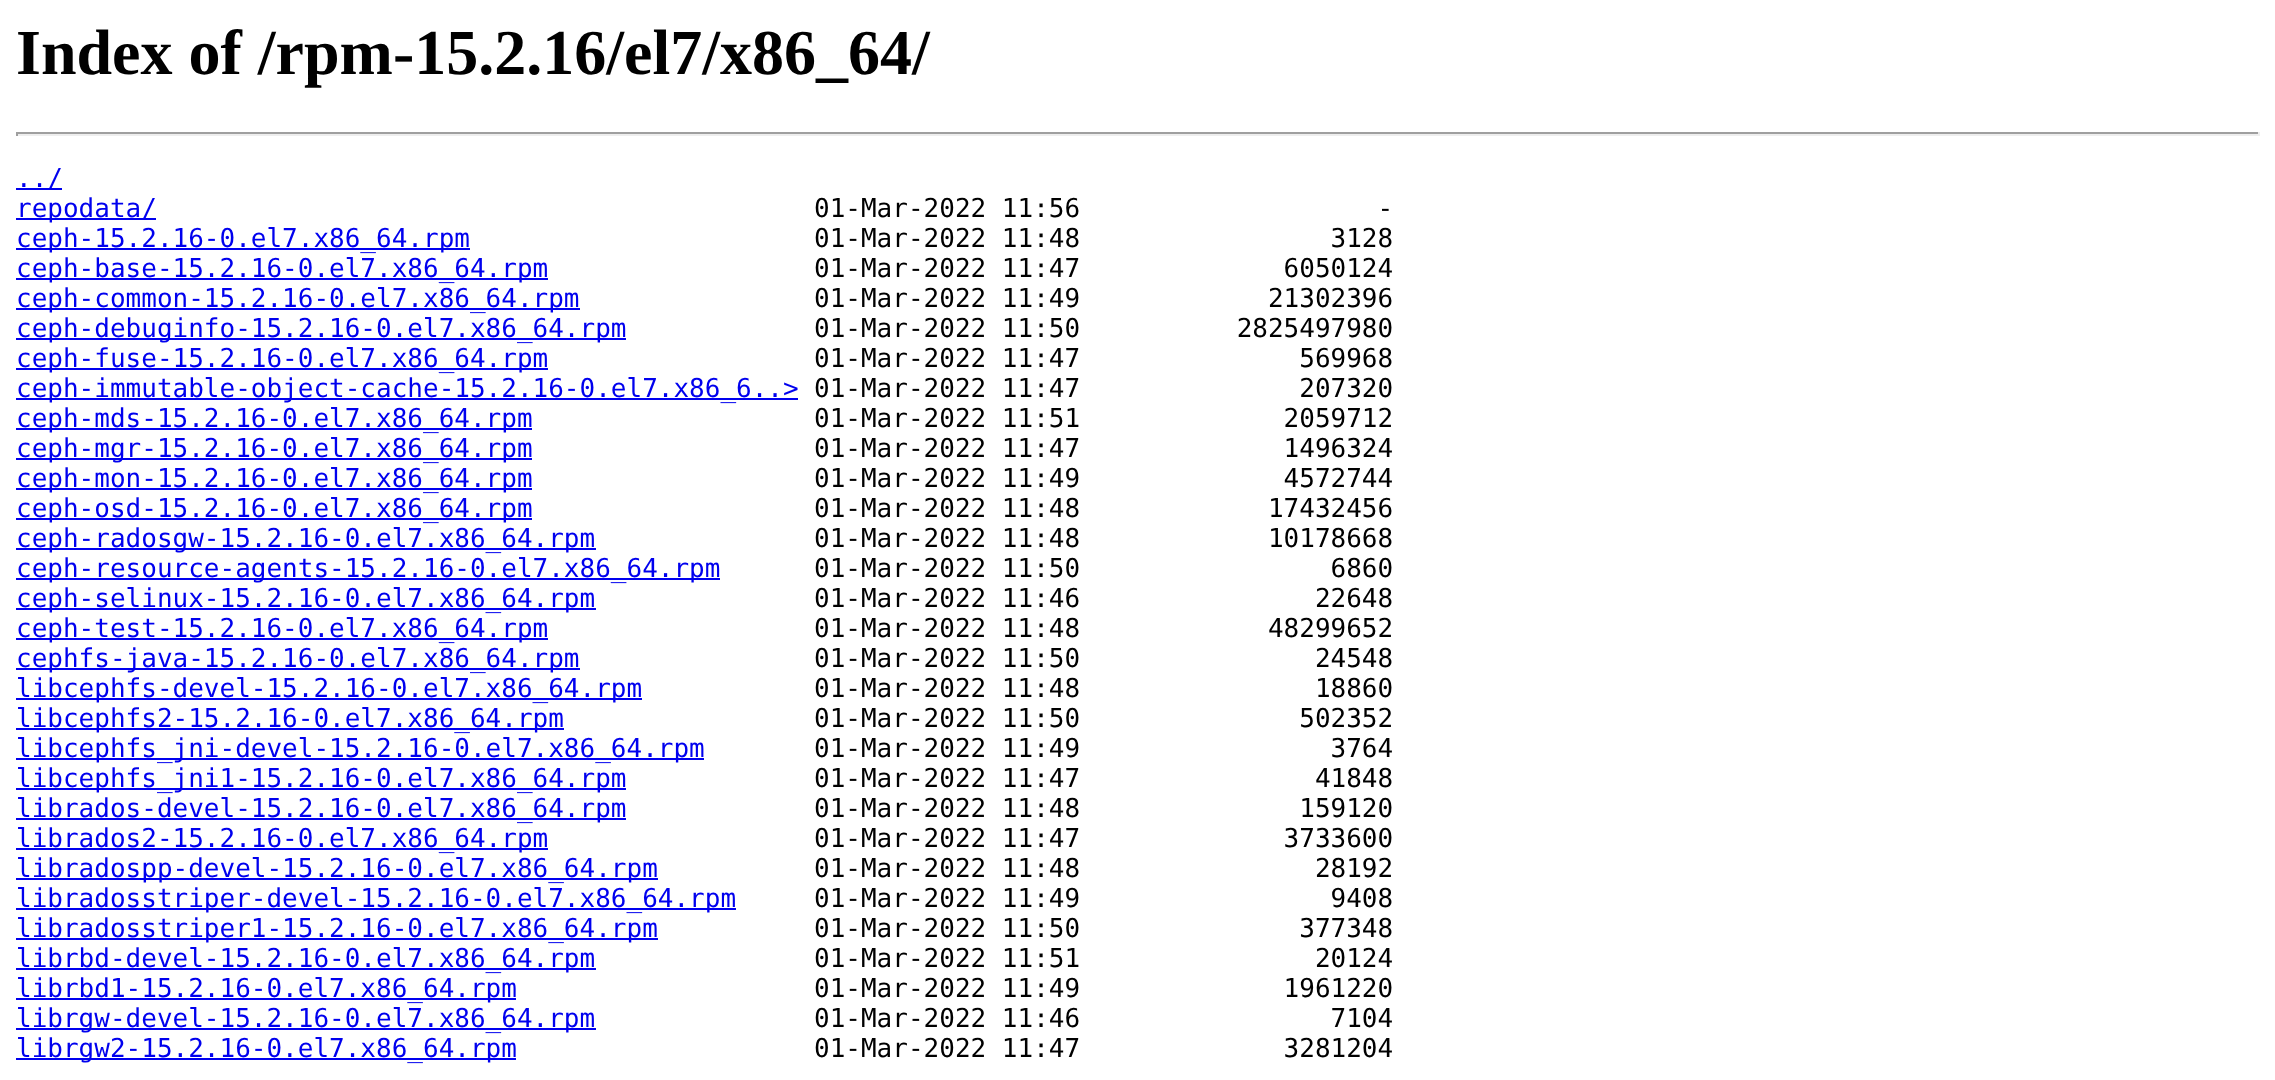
<!DOCTYPE html>
<meta charset="utf-8">
<style>body { margin: 0 } canvas { display: block }</style>
<canvas id="canvas" width="2275" height="1080"></canvas>
<script>
window.onload = function () {
	const canvas = document.getElementById("canvas");
	const ctx = canvas.getContext("2d");
	ctx.miterLimit = 4;
	ctx.fontKerning = "normal";
	function txt(s, x, y) {
		ctx.fillText(s, x, y);
	}
	function fill(x, y, w, h) {
		ctx.fillRect(x, y, w, h);
	}

	ctx.fillStyle = "#FFFFFF";
	fill(0, 0, 2275, 1080);
	ctx.fillStyle = "#9F9F9F";
	fill(16, 132, 2244, 2);
	ctx.fillStyle = "#EEEEEE";
	fill(2258, 132, 2, 4);
	fill(16, 134, 2244, 2);
	ctx.fillStyle = "#9F9F9F";
	fill(16, 132, 2, 4);
	ctx.fillStyle = "#0000EE";
	fill(16, 188, 46, 2);
	fill(16, 218, 140, 2);
	fill(16, 248, 454, 2);
	fill(16, 278, 532, 2);
	fill(16, 308, 564, 2);
	fill(16, 338, 610, 2);
	fill(16, 368, 532, 2);
	fill(16, 398, 782, 2);
	fill(16, 428, 516, 2);
	fill(16, 458, 516, 2);
	fill(16, 488, 516, 2);
	fill(16, 518, 516, 2);
	fill(16, 548, 580, 2);
	fill(16, 578, 704, 2);
	fill(16, 608, 580, 2);
	fill(16, 638, 532, 2);
	fill(16, 668, 564, 2);
	fill(16, 698, 626, 2);
	fill(16, 728, 548, 2);
	fill(16, 758, 688, 2);
	fill(16, 788, 610, 2);
	fill(16, 818, 610, 2);
	fill(16, 848, 532, 2);
	fill(16, 878, 642, 2);
	fill(16, 908, 720, 2);
	fill(16, 938, 642, 2);
	fill(16, 968, 580, 2);
	fill(16, 998, 500, 2);
	fill(16, 1028, 580, 2);
	fill(16, 1058, 500, 2);
	ctx.font = "bold 64px Liberation Serif";
	ctx.fillStyle = "#000000";
	txt("Index of /rpm-15.2.16/el7/x86_64/", 16, 74);
	ctx.font = "26px DejaVu Sans Mono";
	ctx.fillStyle = "#0000EE";
	txt("../", 16, 187);
	txt("repodata/", 16, 217);
	ctx.fillStyle = "#000000";
	txt("01-Mar-2022 11:56                   -", 814, 217);
	ctx.fillStyle = "#0000EE";
	txt("ceph-15.2.16-0.el7.x86_64.rpm", 16, 247);
	ctx.fillStyle = "#000000";
	txt("01-Mar-2022 11:48                3128", 814, 247);
	ctx.fillStyle = "#0000EE";
	txt("ceph-base-15.2.16-0.el7.x86_64.rpm", 16, 277);
	ctx.fillStyle = "#000000";
	txt("01-Mar-2022 11:47             6050124", 814, 277);
	ctx.fillStyle = "#0000EE";
	txt("ceph-common-15.2.16-0.el7.x86_64.rpm", 16, 307);
	ctx.fillStyle = "#000000";
	txt("01-Mar-2022 11:49            21302396", 814, 307);
	ctx.fillStyle = "#0000EE";
	txt("ceph-debuginfo-15.2.16-0.el7.x86_64.rpm", 16, 337);
	ctx.fillStyle = "#000000";
	txt("01-Mar-2022 11:50          2825497980", 814, 337);
	ctx.fillStyle = "#0000EE";
	txt("ceph-fuse-15.2.16-0.el7.x86_64.rpm", 16, 367);
	ctx.fillStyle = "#000000";
	txt("01-Mar-2022 11:47              569968", 814, 367);
	ctx.fillStyle = "#0000EE";
	txt("ceph-immutable-object-cache-15.2.16-0.el7.x86_6..>", 16, 397);
	ctx.fillStyle = "#000000";
	txt("01-Mar-2022 11:47              207320", 814, 397);
	ctx.fillStyle = "#0000EE";
	txt("ceph-mds-15.2.16-0.el7.x86_64.rpm", 16, 427);
	ctx.fillStyle = "#000000";
	txt("01-Mar-2022 11:51             2059712", 814, 427);
	ctx.fillStyle = "#0000EE";
	txt("ceph-mgr-15.2.16-0.el7.x86_64.rpm", 16, 457);
	ctx.fillStyle = "#000000";
	txt("01-Mar-2022 11:47             1496324", 814, 457);
	ctx.fillStyle = "#0000EE";
	txt("ceph-mon-15.2.16-0.el7.x86_64.rpm", 16, 487);
	ctx.fillStyle = "#000000";
	txt("01-Mar-2022 11:49             4572744", 814, 487);
	ctx.fillStyle = "#0000EE";
	txt("ceph-osd-15.2.16-0.el7.x86_64.rpm", 16, 517);
	ctx.fillStyle = "#000000";
	txt("01-Mar-2022 11:48            17432456", 814, 517);
	ctx.fillStyle = "#0000EE";
	txt("ceph-radosgw-15.2.16-0.el7.x86_64.rpm", 16, 547);
	ctx.fillStyle = "#000000";
	txt("01-Mar-2022 11:48            10178668", 814, 547);
	ctx.fillStyle = "#0000EE";
	txt("ceph-resource-agents-15.2.16-0.el7.x86_64.rpm", 16, 577);
	ctx.fillStyle = "#000000";
	txt("01-Mar-2022 11:50                6860", 814, 577);
	ctx.fillStyle = "#0000EE";
	txt("ceph-selinux-15.2.16-0.el7.x86_64.rpm", 16, 607);
	ctx.fillStyle = "#000000";
	txt("01-Mar-2022 11:46               22648", 814, 607);
	ctx.fillStyle = "#0000EE";
	txt("ceph-test-15.2.16-0.el7.x86_64.rpm", 16, 637);
	ctx.fillStyle = "#000000";
	txt("01-Mar-2022 11:48            48299652", 814, 637);
	ctx.fillStyle = "#0000EE";
	txt("cephfs-java-15.2.16-0.el7.x86_64.rpm", 16, 667);
	ctx.fillStyle = "#000000";
	txt("01-Mar-2022 11:50               24548", 814, 667);
	ctx.fillStyle = "#0000EE";
	txt("libcephfs-devel-15.2.16-0.el7.x86_64.rpm", 16, 697);
	ctx.fillStyle = "#000000";
	txt("01-Mar-2022 11:48               18860", 814, 697);
	ctx.fillStyle = "#0000EE";
	txt("libcephfs2-15.2.16-0.el7.x86_64.rpm", 16, 727);
	ctx.fillStyle = "#000000";
	txt("01-Mar-2022 11:50              502352", 814, 727);
	ctx.fillStyle = "#0000EE";
	txt("libcephfs_jni-devel-15.2.16-0.el7.x86_64.rpm", 16, 757);
	ctx.fillStyle = "#000000";
	txt("01-Mar-2022 11:49                3764", 814, 757);
	ctx.fillStyle = "#0000EE";
	txt("libcephfs_jni1-15.2.16-0.el7.x86_64.rpm", 16, 787);
	ctx.fillStyle = "#000000";
	txt("01-Mar-2022 11:47               41848", 814, 787);
	ctx.fillStyle = "#0000EE";
	txt("librados-devel-15.2.16-0.el7.x86_64.rpm", 16, 817);
	ctx.fillStyle = "#000000";
	txt("01-Mar-2022 11:48              159120", 814, 817);
	ctx.fillStyle = "#0000EE";
	txt("librados2-15.2.16-0.el7.x86_64.rpm", 16, 847);
	ctx.fillStyle = "#000000";
	txt("01-Mar-2022 11:47             3733600", 814, 847);
	ctx.fillStyle = "#0000EE";
	txt("libradospp-devel-15.2.16-0.el7.x86_64.rpm", 16, 877);
	ctx.fillStyle = "#000000";
	txt("01-Mar-2022 11:48               28192", 814, 877);
	ctx.fillStyle = "#0000EE";
	txt("libradosstriper-devel-15.2.16-0.el7.x86_64.rpm", 16, 907);
	ctx.fillStyle = "#000000";
	txt("01-Mar-2022 11:49                9408", 814, 907);
	ctx.fillStyle = "#0000EE";
	txt("libradosstriper1-15.2.16-0.el7.x86_64.rpm", 16, 937);
	ctx.fillStyle = "#000000";
	txt("01-Mar-2022 11:50              377348", 814, 937);
	ctx.fillStyle = "#0000EE";
	txt("librbd-devel-15.2.16-0.el7.x86_64.rpm", 16, 967);
	ctx.fillStyle = "#000000";
	txt("01-Mar-2022 11:51               20124", 814, 967);
	ctx.fillStyle = "#0000EE";
	txt("librbd1-15.2.16-0.el7.x86_64.rpm", 16, 997);
	ctx.fillStyle = "#000000";
	txt("01-Mar-2022 11:49             1961220", 814, 997);
	ctx.fillStyle = "#0000EE";
	txt("librgw-devel-15.2.16-0.el7.x86_64.rpm", 16, 1027);
	ctx.fillStyle = "#000000";
	txt("01-Mar-2022 11:46                7104", 814, 1027);
	ctx.fillStyle = "#0000EE";
	txt("librgw2-15.2.16-0.el7.x86_64.rpm", 16, 1057);
	ctx.fillStyle = "#000000";
	txt("01-Mar-2022 11:47             3281204", 814, 1057);
};
</script>
